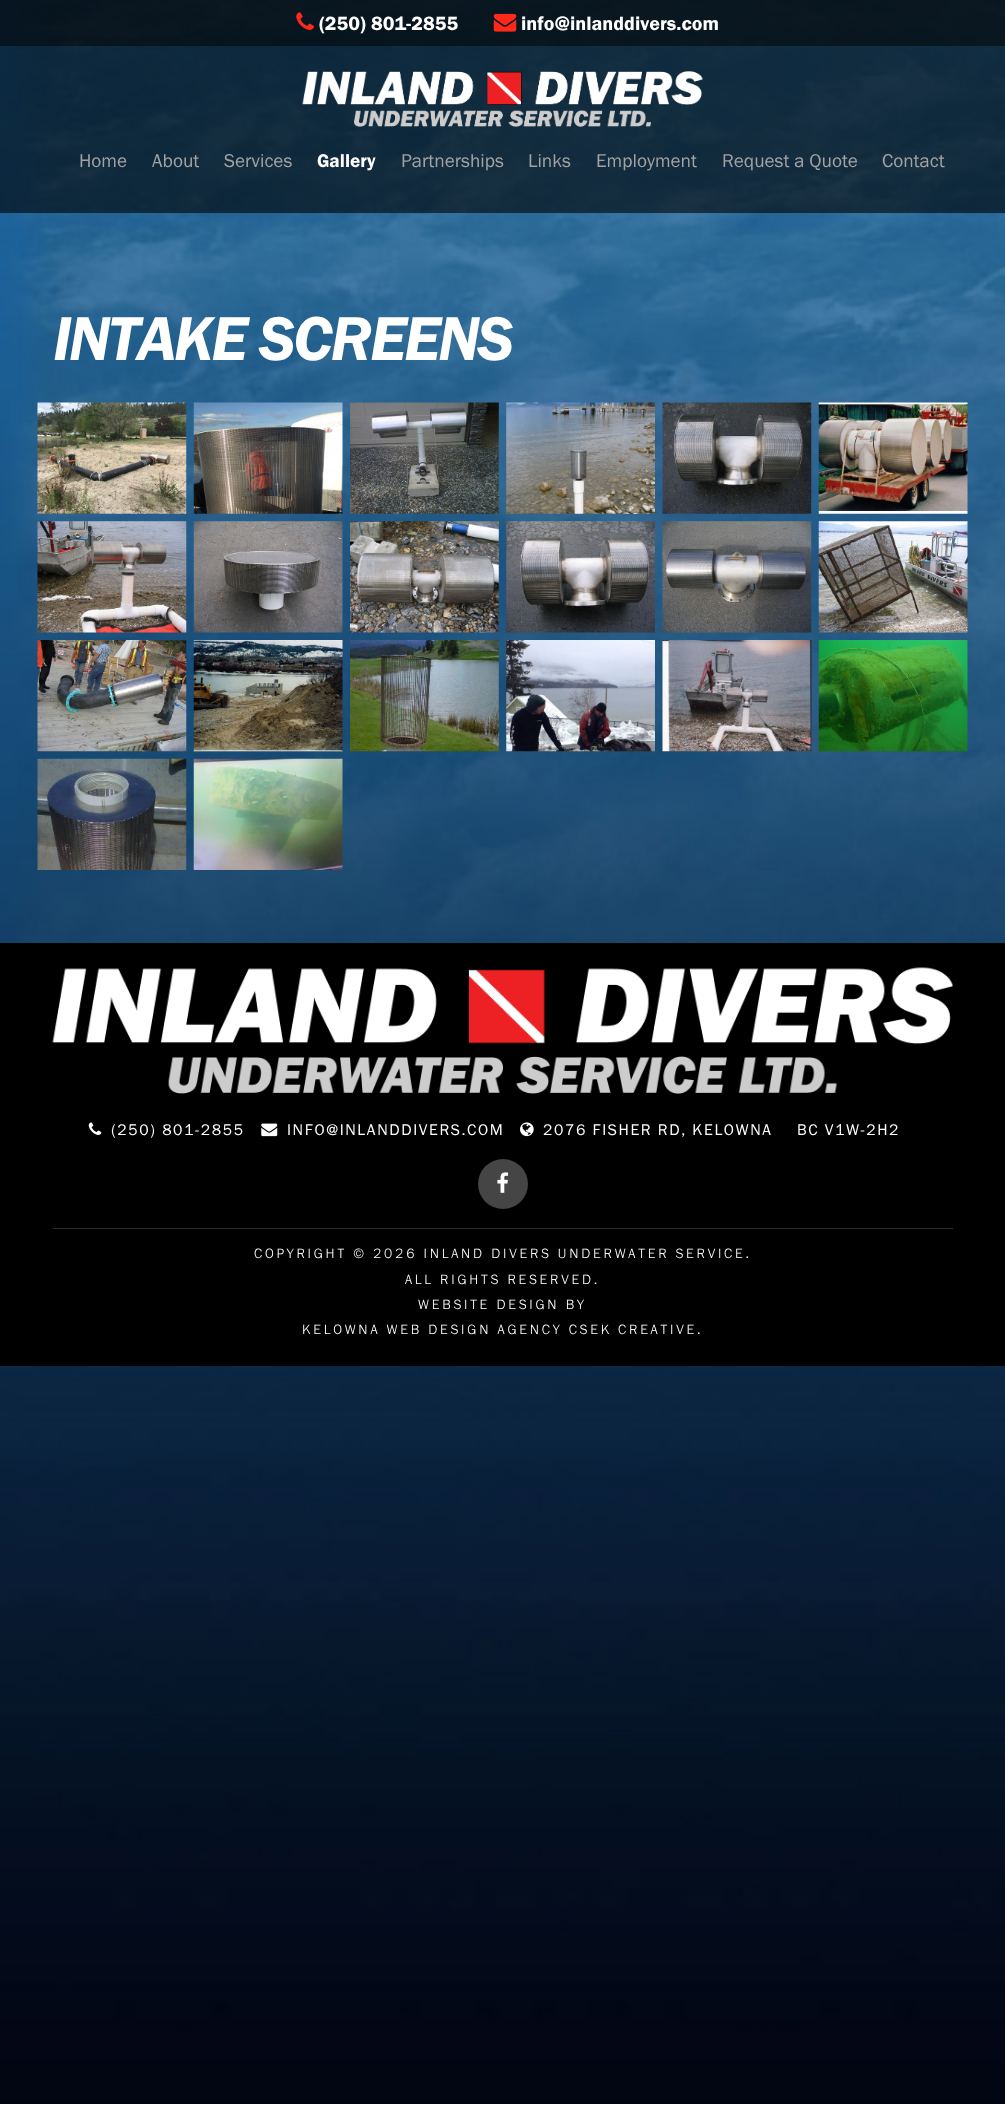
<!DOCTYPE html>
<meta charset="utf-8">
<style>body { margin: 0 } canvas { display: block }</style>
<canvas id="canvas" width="1005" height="2104"></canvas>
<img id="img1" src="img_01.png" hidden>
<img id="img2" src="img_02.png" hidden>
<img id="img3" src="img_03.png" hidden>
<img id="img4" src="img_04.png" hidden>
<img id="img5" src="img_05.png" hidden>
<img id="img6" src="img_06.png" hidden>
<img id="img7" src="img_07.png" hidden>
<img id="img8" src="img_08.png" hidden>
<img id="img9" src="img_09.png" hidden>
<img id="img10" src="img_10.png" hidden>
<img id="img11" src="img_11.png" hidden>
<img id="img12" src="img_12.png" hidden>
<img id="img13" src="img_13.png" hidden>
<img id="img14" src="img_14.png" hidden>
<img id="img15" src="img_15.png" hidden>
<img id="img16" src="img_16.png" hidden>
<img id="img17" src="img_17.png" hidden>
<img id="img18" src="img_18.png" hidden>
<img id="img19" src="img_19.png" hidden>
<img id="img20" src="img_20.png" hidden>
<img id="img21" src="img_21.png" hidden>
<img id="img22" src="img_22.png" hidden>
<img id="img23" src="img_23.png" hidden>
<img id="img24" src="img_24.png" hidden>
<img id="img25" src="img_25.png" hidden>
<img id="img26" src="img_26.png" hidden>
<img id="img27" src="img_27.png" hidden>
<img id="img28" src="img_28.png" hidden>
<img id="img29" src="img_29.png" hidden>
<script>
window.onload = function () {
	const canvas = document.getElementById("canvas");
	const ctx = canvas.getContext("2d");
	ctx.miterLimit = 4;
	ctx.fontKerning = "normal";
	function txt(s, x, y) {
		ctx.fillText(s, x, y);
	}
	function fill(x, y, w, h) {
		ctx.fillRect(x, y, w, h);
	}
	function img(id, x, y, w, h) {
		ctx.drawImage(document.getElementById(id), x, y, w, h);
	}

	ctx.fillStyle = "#FFFFFF";
	fill(0, 0, 1005, 2104);
	img("img1", 0, 0, 1005, 2104);
	ctx.fillStyle = "rgba(0, 0, 0, 0.8)";
	fill(0, 0, 1005, 46);
	img("img2", 296, 12, 18, 18);
	img("img3", 493, 13, 24, 19);
	ctx.fillStyle = "rgba(0, 0, 0, 0.6)";
	fill(0, 46, 1005, 167);
	img("img4", 302, 71, 401, 56);
	img("img5", 37, 402, 150, 112);
	img("img6", 193, 402, 150, 112);
	img("img7", 350, 402, 149, 112);
	img("img8", 506, 402, 149, 112);
	img("img9", 662, 402, 150, 112);
	img("img10", 818, 402, 150, 112);
	img("img11", 37, 521, 150, 112);
	img("img12", 193, 521, 150, 112);
	img("img13", 350, 521, 149, 112);
	img("img14", 506, 521, 149, 112);
	img("img15", 662, 521, 150, 112);
	img("img16", 818, 521, 150, 112);
	img("img17", 37, 640, 150, 112);
	img("img18", 193, 640, 150, 112);
	img("img19", 350, 640, 149, 112);
	img("img20", 506, 640, 149, 112);
	img("img21", 662, 640, 150, 112);
	img("img22", 818, 640, 150, 112);
	img("img23", 37, 758, 150, 112);
	img("img24", 193, 758, 150, 112);
	ctx.fillStyle = "#000000";
	fill(0, 943, 1005, 423);
	img("img25", 52, 967, 901, 127);
	img("img26", 88, 1122, 14, 13);
	img("img27", 261, 1123, 17, 14);
	img("img28", 520, 1122, 14, 15);
	ctx.fillStyle = "#454545";
	ctx.beginPath();
	ctx.arc(503, 1184, 25, 0, Math.PI * 2);
	ctx.fill();
	img("img29", 497, 1172, 12, 21);
	ctx.fillStyle = "#2C2C2C";
	fill(53, 1228, 900, 1);
	ctx.font = "20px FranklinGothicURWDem";
	ctx.fillStyle = "#FFFFFF";
	txt("(250) 801-2855", 319, 30);
	txt("info@inlanddivers.com", 521, 30);
	ctx.font = "19.25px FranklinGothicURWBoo";
	ctx.fillStyle = "#A3A3A3";
	txt("Home", 79, 167);
	txt("About", 152, 167);
	txt("Services", 224, 167);
	ctx.font = "19.25px FranklinGothicURWDem";
	ctx.fillStyle = "#FFFFFF";
	txt("Gallery", 317, 167);
	ctx.font = "19.25px FranklinGothicURWBoo";
	ctx.fillStyle = "#A3A3A3";
	txt("Partnerships", 401, 167);
	txt("Links", 528, 167);
	txt("Employment", 596, 167);
	txt("Request a Quote", 722, 167);
	txt("Contact", 882, 167);
	ctx.letterSpacing = "-2.5px";
	ctx.font = "italic 64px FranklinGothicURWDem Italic";
	ctx.fillStyle = "#FFFFFF";
	txt("INTAKE SCREENS", 53, 360);
	ctx.letterSpacing = "1.6px";
	ctx.font = "16px FranklinGothicURWBoo";
	txt("(250) 801-2855", 111, 1135);
	txt("INFO@INLANDDIVERS.COM", 287, 1135);
	txt("2076 FISHER RD, KELOWNA", 543, 1135);
	txt("BC V1W-2H2", 797, 1135);
	ctx.letterSpacing = "2.8px";
	ctx.font = "14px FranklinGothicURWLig";
	txt("COPYRIGHT © 2026 INLAND DIVERS UNDERWATER SERVICE.", 254, 1258);
	txt("ALL RIGHTS RESERVED.", 405, 1284);
	txt("WEBSITE DESIGN BY", 418, 1309);
	txt("KELOWNA WEB DESIGN AGENCY CSEK CREATIVE.", 302, 1334);
};
</script>
